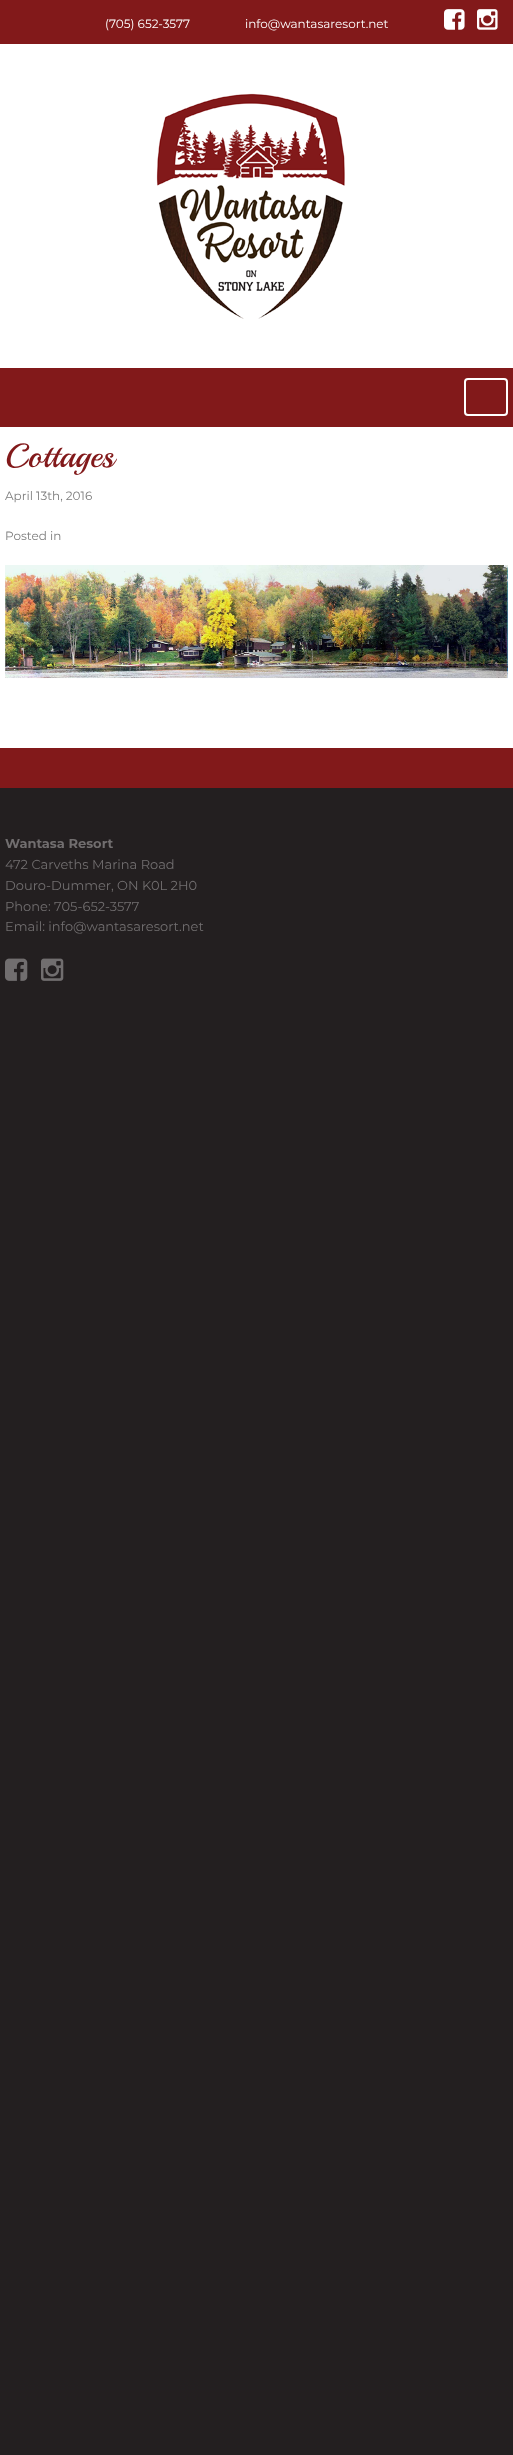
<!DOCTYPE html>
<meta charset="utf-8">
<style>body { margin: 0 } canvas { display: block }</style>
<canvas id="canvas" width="513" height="2455"></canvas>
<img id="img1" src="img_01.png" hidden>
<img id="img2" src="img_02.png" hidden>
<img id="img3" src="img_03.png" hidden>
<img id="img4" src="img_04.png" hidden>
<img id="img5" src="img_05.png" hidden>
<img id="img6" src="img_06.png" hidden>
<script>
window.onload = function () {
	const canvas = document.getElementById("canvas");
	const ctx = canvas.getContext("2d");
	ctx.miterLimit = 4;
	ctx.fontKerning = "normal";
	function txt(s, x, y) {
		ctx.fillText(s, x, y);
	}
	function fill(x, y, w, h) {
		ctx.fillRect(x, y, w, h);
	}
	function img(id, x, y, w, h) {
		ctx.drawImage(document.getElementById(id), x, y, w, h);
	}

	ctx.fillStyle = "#231F20";
	fill(0, 0, 513, 2455);
	ctx.fillStyle = "#82191A";
	fill(0, 0, 513, 44);
	img("img1", 444, 9, 21, 21);
	img("img2", 477, 9, 21, 21);
	ctx.fillStyle = "#FFFFFF";
	fill(0, 44, 513, 324);
	img("img3", 156, 93, 189, 226);
	ctx.fillStyle = "#82191A";
	fill(0, 368, 513, 59);
	ctx.beginPath();
	ctx.roundRect(465, 379, 42, 36, 3);
	ctx.strokeStyle = "#FFFFFF";
	ctx.lineWidth = 2;
	ctx.stroke();
	ctx.fillStyle = "#FFFFFF";
	fill(0, 427, 513, 321);
	img("img4", 5, 565, 503, 114);
	ctx.fillStyle = "#82191A";
	fill(0, 748, 513, 40);
	img("img5", 5, 958, 23, 23);
	img("img6", 41, 958, 23, 23);
	ctx.font = "12px Montserrat";
	ctx.fillStyle = "#FFFFFF";
	txt("(705) 652-3577", 105, 28);
	txt("info@wantasaresort.net", 245, 28);
	ctx.font = "33.5px Playball";
	ctx.fillStyle = "#82191A";
	txt("Cottages", 5, 467);
	ctx.font = "12px Montserrat";
	ctx.fillStyle = "#7D7D7D";
	txt("April 13th, 2016", 5, 500);
	txt("Posted in", 5, 540);
	ctx.font = "bold 13px Montserrat";
	ctx.fillStyle = "#716E6F";
	txt("Wantasa Resort", 5, 848);
	ctx.font = "13px Montserrat";
	txt("472 Carveths Marina Road", 5, 869);
	txt("Douro-Dummer, ON K0L 2H0", 5, 890);
	txt("Phone: 705-652-3577", 5, 911);
	txt("Email: info@wantasaresort.net", 5, 931);
};
</script>
